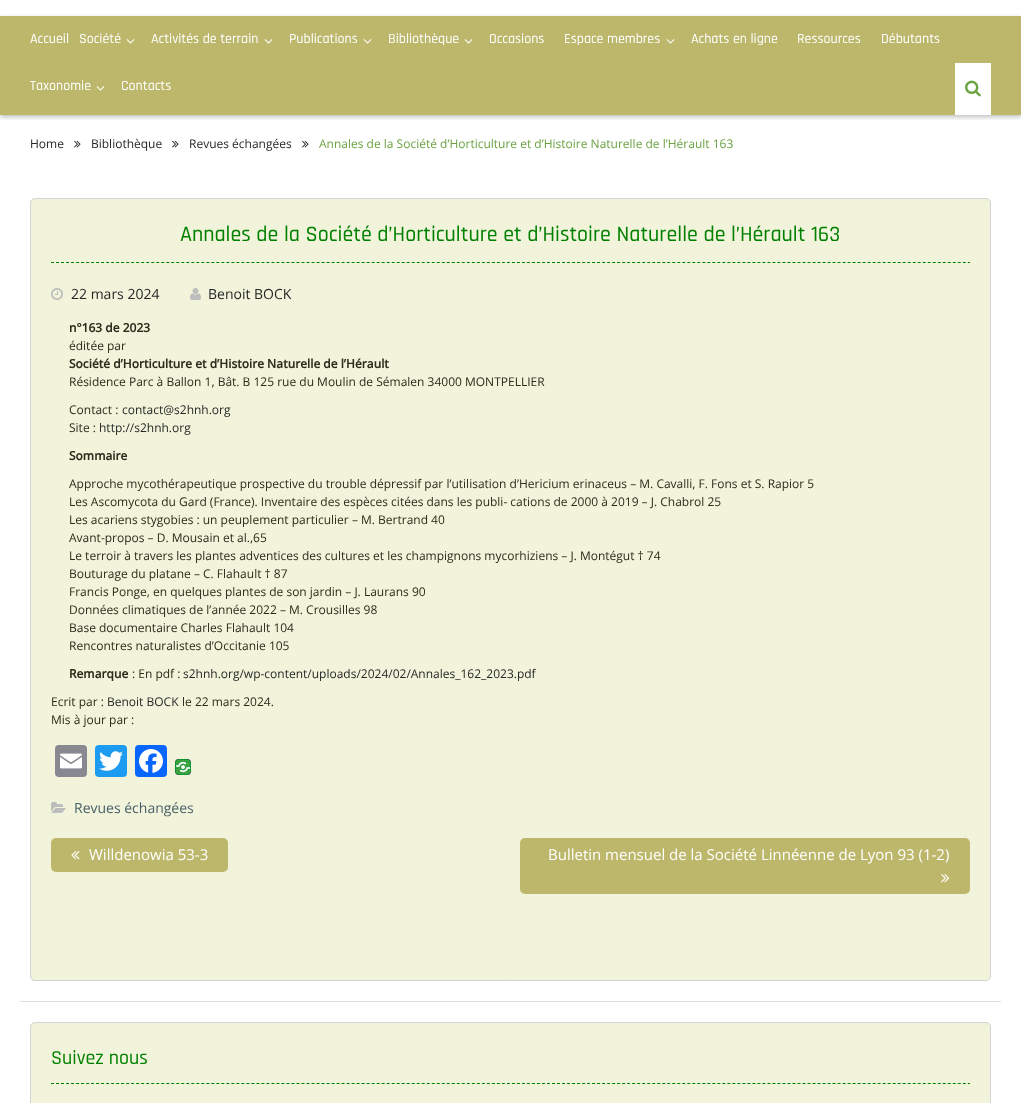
<!DOCTYPE html>
<meta charset="utf-8">
<style>body { margin: 0 } canvas { display: block }</style>
<canvas id="canvas" width="1021" height="1103"></canvas>
<img id="img1" src="img_01.png" hidden>
<img id="img2" src="img_02.png" hidden>
<img id="img3" src="img_03.png" hidden>
<img id="img4" src="img_04.png" hidden>
<img id="img5" src="img_05.png" hidden>
<img id="img6" src="img_06.png" hidden>
<img id="img7" src="img_07.png" hidden>
<img id="img8" src="img_08.png" hidden>
<img id="img9" src="img_09.png" hidden>
<img id="img10" src="img_10.png" hidden>
<img id="img11" src="img_11.png" hidden>
<img id="img12" src="img_12.png" hidden>
<script>
window.onload = function () {
	const canvas = document.getElementById("canvas");
	const ctx = canvas.getContext("2d");
	ctx.miterLimit = 4;
	ctx.fontKerning = "normal";
	function txt(s, x, y) {
		ctx.fillText(s, x, y);
	}
	function fill(x, y, w, h) {
		ctx.fillRect(x, y, w, h);
	}
	function round(x, y, w, h, r) {
		ctx.beginPath();
		ctx.roundRect(x, y, w, h, r);
		ctx.fill();
	}
	function img(id, x, y, w, h) {
		ctx.drawImage(document.getElementById(id), x, y, w, h);
	}

	ctx.fillStyle = "#FFFFFF";
	fill(0, 0, 1021, 1103);
	ctx.fillStyle = "rgba(0, 0, 0, 0.26)";
	ctx.filter = "blur(2.5px)";
	ctx.beginPath();
	ctx.rect(0, 18, 1021, 99);
	ctx.fill();
	ctx.filter = "none";
	ctx.fillStyle = "#BDB76B";
	fill(0, 16, 1021, 99);
	img("img1", 126, 39, 9, 5);
	img("img1", 264, 39, 9, 5);
	img("img1", 363, 39, 9, 5);
	img("img1", 464, 39, 9, 5);
	img("img1", 666, 39, 9, 5);
	img("img1", 96, 86, 9, 5);
	ctx.fillStyle = "#FFFFFF";
	fill(955, 63, 36, 52);
	img("img2", 965, 80, 16, 17);
	fill(0, 120, 1021, 1);
	img("img3", 74, 140, 7, 8);
	img("img3", 172, 140, 7, 8);
	img("img3", 302, 140, 7, 8);
	ctx.fillStyle = "#DDDDDD";
	fill(20, 1001, 981, 1);
	ctx.fillStyle = "#F1F3DA";
	ctx.beginPath();
	ctx.roundRect(30.5, 198.5, 960, 782, 4.5);
	ctx.fill();
	ctx.strokeStyle = "#D3D3D3";
	ctx.stroke();
	ctx.beginPath();
	ctx.moveTo(51, 262.5);
	ctx.lineTo(970, 262.5);
	ctx.strokeStyle = "#008000";
	ctx.setLineDash([3, 2.01]);
	ctx.stroke();
	img("img4", 51, 288, 12, 12);
	img("img5", 190, 288, 11, 12);
	ctx.fillStyle = "#888990";
	round(55, 745, 32, 32, 4);
	img("img6", 60, 753, 22, 16);
	ctx.fillStyle = "#1D9BF0";
	round(95, 745, 32, 32, 4);
	img("img7", 99, 751, 24, 20);
	ctx.fillStyle = "#0866FF";
	round(135, 745, 32, 32, 4);
	img("img8", 139, 749, 24, 24);
	img("img9", 175, 759, 16, 16);
	img("img10", 51, 802, 15, 11);
	ctx.fillStyle = "#BDB76B";
	round(51, 838, 177, 34, 5);
	img("img11", 71, 851, 9, 9);
	round(520, 838, 450, 56, 5);
	img("img12", 941, 874, 9, 9);
	ctx.fillStyle = "#F1F3DA";
	ctx.beginPath();
	ctx.roundRect(30.5, 1022.5, 960, 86, 4.5);
	ctx.fill();
	ctx.strokeStyle = "#D3D3D3";
	ctx.setLineDash([]);
	ctx.stroke();
	ctx.beginPath();
	ctx.moveTo(51, 1083.5);
	ctx.lineTo(970, 1083.5);
	ctx.strokeStyle = "#008000";
	ctx.setLineDash([3, 2.01]);
	ctx.stroke();
	ctx.font = "500 14px Rajdhani";
	ctx.fillStyle = "#FFFFFF";
	txt("Accueil", 30, 43);
	txt("Société", 79, 43);
	txt("Activités de terrain", 151, 43);
	txt("Publications", 289, 43);
	txt("Bibliothèque", 388, 43);
	txt("Occasions", 489, 43);
	txt("Espace membres", 564, 43);
	txt("Achats en ligne", 691, 43);
	txt("Ressources", 797, 43);
	txt("Débutants", 881, 43);
	txt("Taxonomie", 30, 90);
	txt("Contacts", 121, 90);
	ctx.font = "12px Open Sans";
	ctx.fillStyle = "#272727";
	txt("Home", 30, 148);
	txt("Bibliothèque", 91, 148);
	txt("Revues échangées", 189, 148);
	ctx.fillStyle = "#6BA342";
	txt("Annales de la Société d’Horticulture et d’Histoire Naturelle de l’Hérault 163", 319, 148);
	ctx.font = "500 22px Rajdhani";
	ctx.fillStyle = "#008000";
	txt("Annales de la Société d’Horticulture et d’Histoire Naturelle de l’Hérault 163", 180, 241);
	ctx.font = "14px Open Sans";
	ctx.fillStyle = "#272727";
	txt("22 mars 2024", 71, 299);
	txt("Benoit BOCK", 208, 299);
	ctx.font = "bold 12px Open Sans";
	ctx.fillStyle = "#2B2C1B";
	txt("n°163 de 2023", 69, 332);
	ctx.font = "12px Open Sans";
	txt("éditée par", 69, 350);
	ctx.font = "bold 12px Open Sans";
	txt("Société d’Horticulture et d’Histoire Naturelle de l’Hérault", 69, 368);
	ctx.font = "12px Open Sans";
	txt("Résidence Parc à Ballon 1, Bât. B 125 rue du Moulin de Sémalen 34000 MONTPELLIER", 69, 386);
	txt("Contact :", 69, 414);
	ctx.fillStyle = "#272727";
	txt("contact@s2hnh.org", 122, 414);
	ctx.fillStyle = "#2B2C1B";
	txt("Site :", 69, 432);
	ctx.fillStyle = "#272727";
	txt("http://s2hnh.org", 99, 432);
	ctx.font = "bold 12px Open Sans";
	ctx.fillStyle = "#2B2C1B";
	txt("Sommaire", 69, 460);
	ctx.font = "12px Open Sans";
	txt("Approche mycothérapeutique prospective du trouble dépressif par l’utilisation d’Hericium erinaceus – M. Cavalli, F. Fons et S. Rapior 5", 69, 488);
	txt("Les Ascomycota du Gard (France). Inventaire des espèces citées dans les publi- cations de 2000 à 2019 – J. Chabrol 25", 69, 506);
	txt("Les acariens stygobies : un peuplement particulier – M. Bertrand 40", 69, 524);
	txt("Avant-propos – D. Mousain et al.,65", 69, 542);
	txt("Le terroir à travers les plantes adventices des cultures et les champignons mycorhiziens – J. Montégut † 74", 69, 560);
	txt("Bouturage du platane – C. Flahault † 87", 69, 578);
	txt("Francis Ponge, en quelques plantes de son jardin – J. Laurans 90", 69, 596);
	txt("Données climatiques de l’année 2022 – M. Crousilles 98", 69, 614);
	txt("Base documentaire Charles Flahault 104", 69, 632);
	txt("Rencontres naturalistes d’Occitanie 105", 69, 650);
	ctx.font = "bold 12px Open Sans";
	txt("Remarque", 69, 678);
	ctx.font = "12px Open Sans";
	txt(": En pdf :", 132, 678);
	ctx.fillStyle = "#272727";
	txt("s2hnh.org/wp-content/uploads/2024/02/Annales_162_2023.pdf", 183, 678);
	ctx.fillStyle = "#2B2C1B";
	txt("Ecrit par :", 51, 706);
	ctx.fillStyle = "#272727";
	txt("Benoit BOCK", 107, 706);
	ctx.fillStyle = "#2B2C1B";
	txt("le 22 mars 2024.", 182, 706);
	txt("Mis à jour par :", 51, 724);
	ctx.font = "14px Open Sans";
	ctx.fillStyle = "#49616B";
	txt("Revues échangées", 74, 813);
	ctx.font = "15px Open Sans";
	ctx.fillStyle = "#FFFFFF";
	txt("Willdenowia 53-3", 89, 860);
	txt("Bulletin mensuel de la Société Linnéenne de Lyon 93 (1-2)", 548, 860);
	ctx.font = "500 20px Rajdhani";
	ctx.fillStyle = "#008000";
	txt("Suivez nous", 51, 1064);
};
</script>
